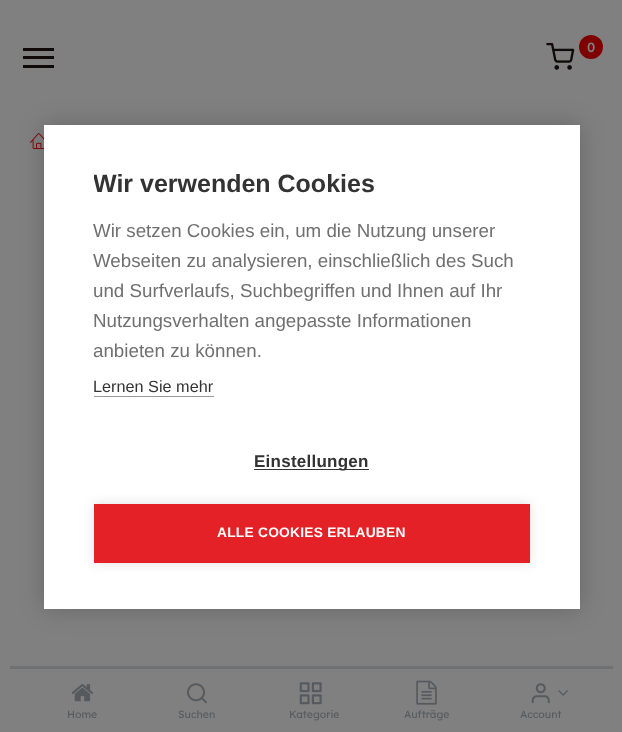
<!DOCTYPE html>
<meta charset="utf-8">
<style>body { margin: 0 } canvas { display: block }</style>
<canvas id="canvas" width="622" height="732"></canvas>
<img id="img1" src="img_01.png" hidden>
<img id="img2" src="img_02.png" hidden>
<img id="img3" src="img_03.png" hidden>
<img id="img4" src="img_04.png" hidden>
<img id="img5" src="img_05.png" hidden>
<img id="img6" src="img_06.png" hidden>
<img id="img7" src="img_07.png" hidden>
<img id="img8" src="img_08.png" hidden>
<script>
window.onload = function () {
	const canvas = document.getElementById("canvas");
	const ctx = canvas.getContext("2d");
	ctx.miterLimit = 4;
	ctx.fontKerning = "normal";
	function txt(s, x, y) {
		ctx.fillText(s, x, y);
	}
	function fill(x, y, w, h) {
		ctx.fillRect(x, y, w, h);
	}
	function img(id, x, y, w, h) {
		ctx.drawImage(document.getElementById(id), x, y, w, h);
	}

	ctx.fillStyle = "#808080";
	fill(0, 0, 622, 732);
	ctx.fillStyle = "#100A0A";
	fill(23, 48, 31, 3);
	fill(23, 56, 31, 3);
	fill(23, 65, 31, 3);
	img("img1", 546, 42, 29, 28);
	ctx.fillStyle = "#7E0000";
	ctx.beginPath();
	ctx.arc(591, 47, 12, 0, Math.PI * 2);
	ctx.fill();
	img("img2", 30, 133, 14, 16);
	ctx.fillStyle = "#6F7173";
	fill(10, 666, 603, 3);
	img("img3", 71, 684, 23, 18);
	img("img4", 187, 683, 20, 21);
	img("img5", 299, 682, 23, 23);
	img("img6", 416, 680, 21, 25);
	img("img7", 531, 683, 19, 21);
	img("img8", 558, 690, 10, 6);
	ctx.fillStyle = "rgba(0, 0, 0, 0.2)";
	ctx.filter = "blur(12.5px)";
	ctx.beginPath();
	ctx.rect(44, 125, 536, 484);
	ctx.fill();
	ctx.filter = "none";
	ctx.fillStyle = "#FFFFFF";
	fill(44, 125, 536, 484);
	ctx.fillStyle = "#999999";
	fill(94, 396, 120, 1);
	ctx.fillStyle = "#333333";
	fill(254, 469, 115, 1);
	ctx.fillStyle = "rgba(0, 0, 0, 0.12)";
	ctx.filter = "blur(6px)";
	ctx.beginPath();
	ctx.rect(94, 504, 436, 59);
	ctx.fill();
	ctx.filter = "none";
	ctx.fillStyle = "#E42127";
	fill(94, 504, 436, 59);
	ctx.font = "bold 13px Lexend";
	ctx.fillStyle = "#808080";
	txt("0", 587, 52);
	ctx.font = "10.5px Lexend";
	ctx.fillStyle = "#575B5F";
	txt("Home", 67, 718);
	txt("Suchen", 178, 718);
	txt("Kategorie", 289, 718);
	txt("Aufträge", 404, 718);
	txt("Account", 520, 718);
	ctx.save();
	ctx.beginPath();
	ctx.rect(94, 171, 436, 262);
	ctx.clip();
	ctx.font = "bold 25px Liberation Sans";
	ctx.fillStyle = "#333333";
	txt("Wir verwenden Cookies", 93, 192);
	ctx.restore();
	ctx.font = "18.75px Liberation Sans";
	ctx.fillStyle = "#707070";
	txt("Wir setzen Cookies ein, um die Nutzung unserer", 93, 237);
	txt("Webseiten zu analysieren, einschließlich des Such", 93, 267);
	txt("und Surfverlaufs, Suchbegriffen und Ihnen auf Ihr", 93, 297);
	txt("Nutzungsverhalten angepasste Informationen", 93, 327);
	txt("anbieten zu können.", 93, 357);
	ctx.font = "16.25px Liberation Sans";
	ctx.fillStyle = "#333333";
	txt("Lernen Sie mehr", 93, 392);
	ctx.letterSpacing = "0.25px";
	ctx.font = "bold 17px Liberation Sans";
	txt("Einstellungen", 254, 467);
	ctx.font = "bold 13.75px Liberation Sans";
	ctx.fillStyle = "#FFFFFF";
	txt("ALLE COOKIES ERLAUBEN", 217, 537);
};
</script>
